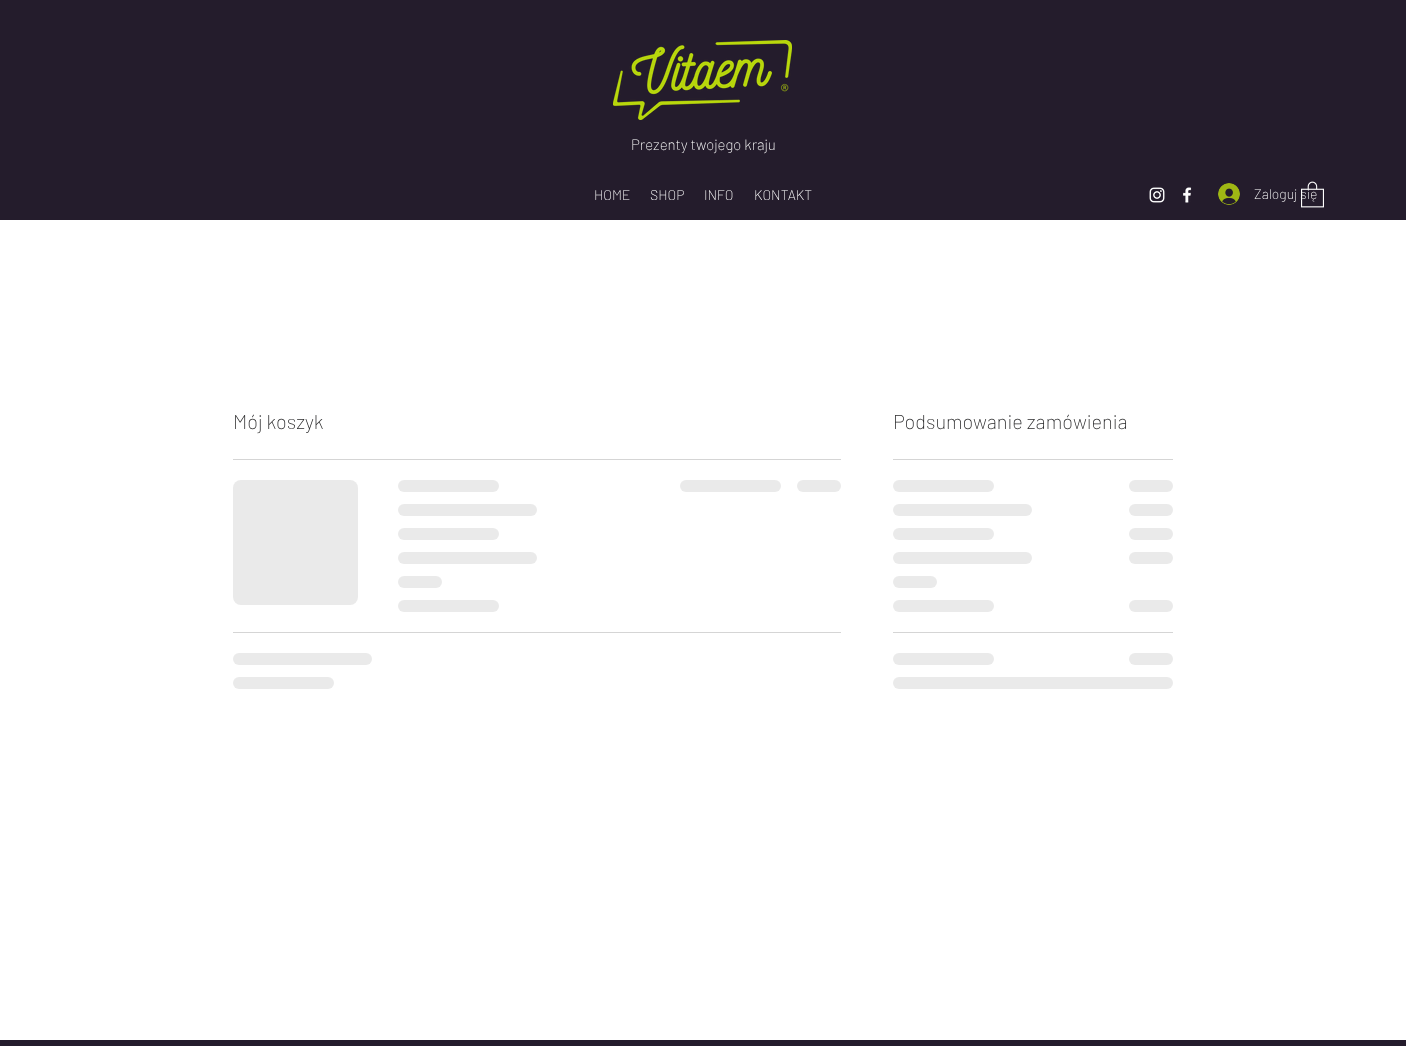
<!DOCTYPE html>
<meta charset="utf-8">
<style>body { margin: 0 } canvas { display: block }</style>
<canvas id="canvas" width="1406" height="1046"></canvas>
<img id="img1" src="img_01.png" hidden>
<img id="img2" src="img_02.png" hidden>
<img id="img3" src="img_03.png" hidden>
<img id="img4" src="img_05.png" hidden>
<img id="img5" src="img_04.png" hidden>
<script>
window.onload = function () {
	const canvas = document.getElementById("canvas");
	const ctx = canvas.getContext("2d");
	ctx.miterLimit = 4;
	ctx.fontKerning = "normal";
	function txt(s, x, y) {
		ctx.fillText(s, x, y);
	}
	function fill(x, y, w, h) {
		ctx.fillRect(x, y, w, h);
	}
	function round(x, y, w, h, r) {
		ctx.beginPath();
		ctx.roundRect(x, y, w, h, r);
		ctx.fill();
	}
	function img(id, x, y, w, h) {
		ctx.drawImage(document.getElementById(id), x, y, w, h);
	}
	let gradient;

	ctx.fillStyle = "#FFFFFF";
	fill(0, 0, 1406, 1046);
	ctx.fillStyle = "#241C2C";
	fill(0, 0, 1406, 220);
	img("img1", 613, 40, 179, 80);
	img("img2", 1149, 187, 16, 16);
	img("img3", 1183, 187, 9, 16);
	img("img4", 1218, 183, 22, 22);
	ctx.fillStyle = "#D5D5D5";
	fill(233, 459, 608, 1);
	gradient = ctx.createLinearGradient(233, 543, 733, 543);
	gradient.addColorStop(0.25, "#EAEAEA");
	gradient.addColorStop(0.37, "#D5D5D5");
	gradient.addColorStop(0.63, "#EAEAEA");
	ctx.fillStyle = gradient;
	round(233, 480, 125, 125, 8);
	gradient = ctx.createLinearGradient(398, 486, 802, 486);
	gradient.addColorStop(0.25, "#EAEAEA");
	gradient.addColorStop(0.37, "#D5D5D5");
	gradient.addColorStop(0.63, "#EAEAEA");
	ctx.fillStyle = gradient;
	round(398, 480, 101, 12, 6);
	gradient = ctx.createLinearGradient(398, 510, 954, 510);
	gradient.addColorStop(0.25, "#EAEAEA");
	gradient.addColorStop(0.37, "#D5D5D5");
	gradient.addColorStop(0.63, "#EAEAEA");
	ctx.fillStyle = gradient;
	round(398, 504, 139, 12, 6);
	gradient = ctx.createLinearGradient(398, 534, 802, 534);
	gradient.addColorStop(0.25, "#EAEAEA");
	gradient.addColorStop(0.37, "#D5D5D5");
	gradient.addColorStop(0.63, "#EAEAEA");
	ctx.fillStyle = gradient;
	round(398, 528, 101, 12, 6);
	gradient = ctx.createLinearGradient(398, 558, 954, 558);
	gradient.addColorStop(0.25, "#EAEAEA");
	gradient.addColorStop(0.37, "#D5D5D5");
	gradient.addColorStop(0.63, "#EAEAEA");
	ctx.fillStyle = gradient;
	round(398, 552, 139, 12, 6);
	gradient = ctx.createLinearGradient(398, 582, 574, 582);
	gradient.addColorStop(0.25, "#EAEAEA");
	gradient.addColorStop(0.37, "#D5D5D5");
	gradient.addColorStop(0.63, "#EAEAEA");
	ctx.fillStyle = gradient;
	round(398, 576, 44, 12, 6);
	gradient = ctx.createLinearGradient(398, 606, 802, 606);
	gradient.addColorStop(0.25, "#EAEAEA");
	gradient.addColorStop(0.37, "#D5D5D5");
	gradient.addColorStop(0.63, "#EAEAEA");
	ctx.fillStyle = gradient;
	round(398, 600, 101, 12, 6);
	gradient = ctx.createLinearGradient(680, 486, 1084, 486);
	gradient.addColorStop(0.25, "#EAEAEA");
	gradient.addColorStop(0.37, "#D5D5D5");
	gradient.addColorStop(0.63, "#EAEAEA");
	ctx.fillStyle = gradient;
	round(680, 480, 101, 12, 6);
	gradient = ctx.createLinearGradient(797, 486, 973, 486);
	gradient.addColorStop(0.25, "#EAEAEA");
	gradient.addColorStop(0.37, "#D5D5D5");
	gradient.addColorStop(0.63, "#EAEAEA");
	ctx.fillStyle = gradient;
	round(797, 480, 44, 12, 6);
	ctx.fillStyle = "#D5D5D5";
	fill(233, 632, 608, 1);
	gradient = ctx.createLinearGradient(233, 659, 789, 659);
	gradient.addColorStop(0.25, "#EAEAEA");
	gradient.addColorStop(0.37, "#D5D5D5");
	gradient.addColorStop(0.63, "#EAEAEA");
	ctx.fillStyle = gradient;
	round(233, 653, 139, 12, 6);
	gradient = ctx.createLinearGradient(233, 683, 637, 683);
	gradient.addColorStop(0.25, "#EAEAEA");
	gradient.addColorStop(0.37, "#D5D5D5");
	gradient.addColorStop(0.63, "#EAEAEA");
	ctx.fillStyle = gradient;
	round(233, 677, 101, 12, 6);
	ctx.fillStyle = "#D5D5D5";
	fill(893, 459, 280, 1);
	gradient = ctx.createLinearGradient(893, 486, 1297, 486);
	gradient.addColorStop(0.25, "#EAEAEA");
	gradient.addColorStop(0.37, "#D5D5D5");
	gradient.addColorStop(0.63, "#EAEAEA");
	ctx.fillStyle = gradient;
	round(893, 480, 101, 12, 6);
	gradient = ctx.createLinearGradient(1129, 486, 1305, 486);
	gradient.addColorStop(0.25, "#EAEAEA");
	gradient.addColorStop(0.37, "#D5D5D5");
	gradient.addColorStop(0.63, "#EAEAEA");
	ctx.fillStyle = gradient;
	round(1129, 480, 44, 12, 6);
	gradient = ctx.createLinearGradient(893, 510, 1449, 510);
	gradient.addColorStop(0.25, "#EAEAEA");
	gradient.addColorStop(0.37, "#D5D5D5");
	gradient.addColorStop(0.63, "#EAEAEA");
	ctx.fillStyle = gradient;
	round(893, 504, 139, 12, 6);
	gradient = ctx.createLinearGradient(1129, 510, 1305, 510);
	gradient.addColorStop(0.25, "#EAEAEA");
	gradient.addColorStop(0.37, "#D5D5D5");
	gradient.addColorStop(0.63, "#EAEAEA");
	ctx.fillStyle = gradient;
	round(1129, 504, 44, 12, 6);
	gradient = ctx.createLinearGradient(893, 534, 1297, 534);
	gradient.addColorStop(0.25, "#EAEAEA");
	gradient.addColorStop(0.37, "#D5D5D5");
	gradient.addColorStop(0.63, "#EAEAEA");
	ctx.fillStyle = gradient;
	round(893, 528, 101, 12, 6);
	gradient = ctx.createLinearGradient(1129, 534, 1305, 534);
	gradient.addColorStop(0.25, "#EAEAEA");
	gradient.addColorStop(0.37, "#D5D5D5");
	gradient.addColorStop(0.63, "#EAEAEA");
	ctx.fillStyle = gradient;
	round(1129, 528, 44, 12, 6);
	gradient = ctx.createLinearGradient(893, 558, 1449, 558);
	gradient.addColorStop(0.25, "#EAEAEA");
	gradient.addColorStop(0.37, "#D5D5D5");
	gradient.addColorStop(0.63, "#EAEAEA");
	ctx.fillStyle = gradient;
	round(893, 552, 139, 12, 6);
	gradient = ctx.createLinearGradient(1129, 558, 1305, 558);
	gradient.addColorStop(0.25, "#EAEAEA");
	gradient.addColorStop(0.37, "#D5D5D5");
	gradient.addColorStop(0.63, "#EAEAEA");
	ctx.fillStyle = gradient;
	round(1129, 552, 44, 12, 6);
	gradient = ctx.createLinearGradient(893, 582, 1069, 582);
	gradient.addColorStop(0.25, "#EAEAEA");
	gradient.addColorStop(0.37, "#D5D5D5");
	gradient.addColorStop(0.63, "#EAEAEA");
	ctx.fillStyle = gradient;
	round(893, 576, 44, 12, 6);
	gradient = ctx.createLinearGradient(893, 606, 1297, 606);
	gradient.addColorStop(0.25, "#EAEAEA");
	gradient.addColorStop(0.37, "#D5D5D5");
	gradient.addColorStop(0.63, "#EAEAEA");
	ctx.fillStyle = gradient;
	round(893, 600, 101, 12, 6);
	gradient = ctx.createLinearGradient(1129, 606, 1305, 606);
	gradient.addColorStop(0.25, "#EAEAEA");
	gradient.addColorStop(0.37, "#D5D5D5");
	gradient.addColorStop(0.63, "#EAEAEA");
	ctx.fillStyle = gradient;
	round(1129, 600, 44, 12, 6);
	ctx.fillStyle = "#D5D5D5";
	fill(893, 632, 280, 1);
	gradient = ctx.createLinearGradient(893, 659, 1297, 659);
	gradient.addColorStop(0.25, "#EAEAEA");
	gradient.addColorStop(0.37, "#D5D5D5");
	gradient.addColorStop(0.63, "#EAEAEA");
	ctx.fillStyle = gradient;
	round(893, 653, 101, 12, 6);
	gradient = ctx.createLinearGradient(1129, 659, 1305, 659);
	gradient.addColorStop(0.25, "#EAEAEA");
	gradient.addColorStop(0.37, "#D5D5D5");
	gradient.addColorStop(0.63, "#EAEAEA");
	ctx.fillStyle = gradient;
	round(1129, 653, 44, 12, 6);
	gradient = ctx.createLinearGradient(893, 683, 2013, 683);
	gradient.addColorStop(0.25, "#EAEAEA");
	gradient.addColorStop(0.37, "#D5D5D5");
	gradient.addColorStop(0.63, "#EAEAEA");
	ctx.fillStyle = gradient;
	round(893, 677, 280, 12, 6);
	ctx.fillStyle = "#241C2C";
	fill(0, 1040, 1406, 6);
	ctx.font = "200 15px Barlow";
	ctx.fillStyle = "#FFFFFF";
	txt("Prezenty twojego kraju", 631, 150);
	ctx.font = "200 14px Barlow";
	txt("HOME", 594, 200);
	txt("SHOP", 650, 200);
	txt("INFO", 704, 200);
	txt("KONTAKT", 754, 200);
	txt("Zaloguj się", 1254, 199);
	img("img5", 1301, 181, 23, 27);
	ctx.font = "200 20px Barlow";
	ctx.fillStyle = "#2B2B2C";
	txt("Mój koszyk", 233, 429);
	txt("Podsumowanie zamówienia", 893, 429);
};
</script>
